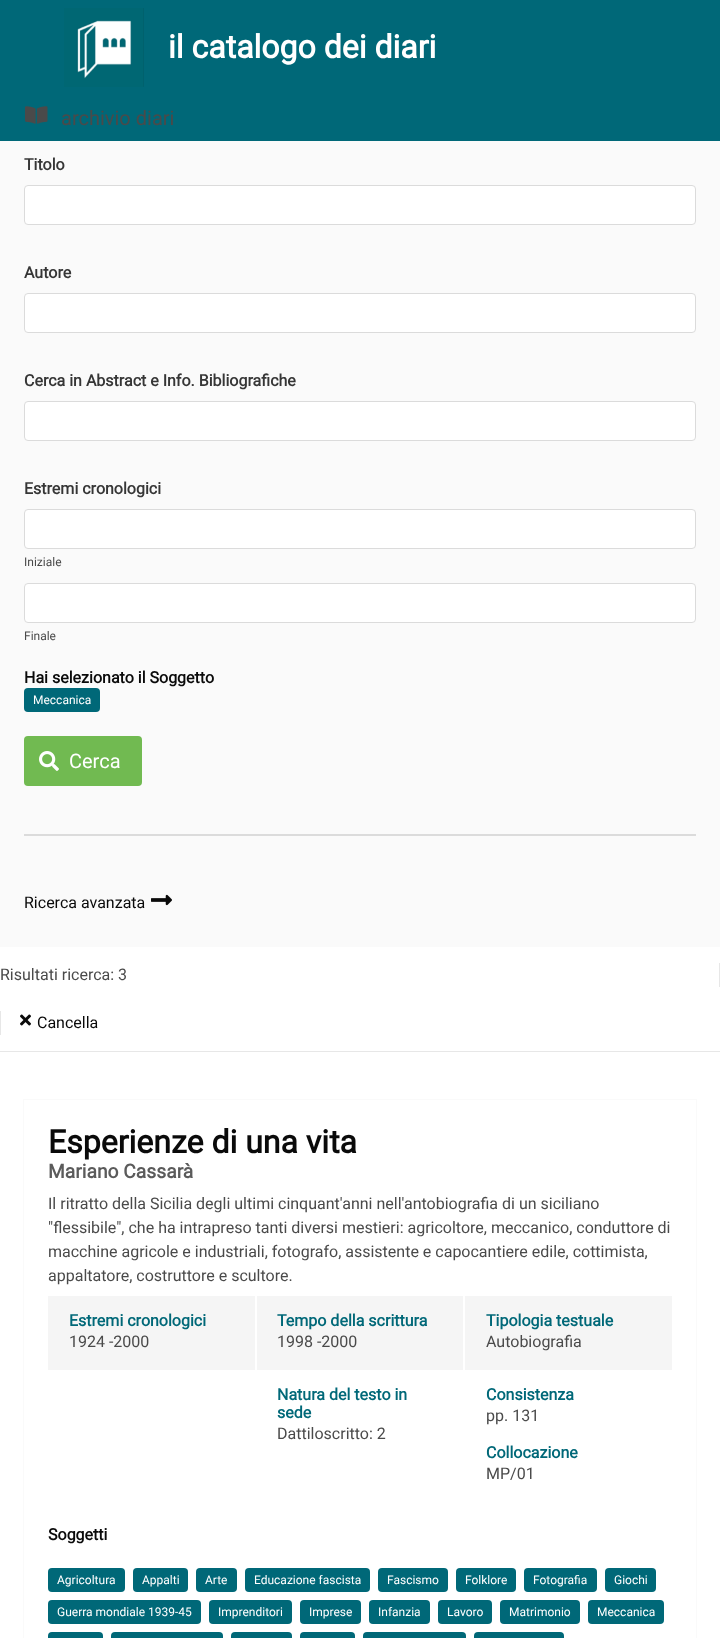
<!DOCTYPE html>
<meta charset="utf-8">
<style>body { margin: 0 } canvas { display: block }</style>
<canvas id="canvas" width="720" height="1638"></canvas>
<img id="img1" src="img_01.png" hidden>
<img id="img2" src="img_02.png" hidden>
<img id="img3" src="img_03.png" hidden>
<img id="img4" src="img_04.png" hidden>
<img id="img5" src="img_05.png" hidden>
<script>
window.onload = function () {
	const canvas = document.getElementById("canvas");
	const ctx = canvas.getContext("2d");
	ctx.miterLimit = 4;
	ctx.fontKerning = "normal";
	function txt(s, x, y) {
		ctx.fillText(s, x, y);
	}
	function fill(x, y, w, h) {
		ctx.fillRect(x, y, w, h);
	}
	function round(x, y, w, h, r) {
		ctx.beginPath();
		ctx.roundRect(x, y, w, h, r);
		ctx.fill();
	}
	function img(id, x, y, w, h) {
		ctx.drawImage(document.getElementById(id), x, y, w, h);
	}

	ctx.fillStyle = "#FFFFFF";
	fill(0, 0, 720, 1638);
	ctx.fillStyle = "#006878";
	fill(0, 0, 720, 141);
	img("img1", 64, 8, 80, 79);
	img("img2", 25, 106, 23, 18);
	ctx.fillStyle = "#FAFAFA";
	fill(0, 141, 720, 806);
	ctx.fillStyle = "#FFFFFF";
	ctx.beginPath();
	ctx.roundRect(24.5, 185.5, 671, 39, 3.5);
	ctx.fill();
	ctx.strokeStyle = "#DBDBDB";
	ctx.stroke();
	ctx.beginPath();
	ctx.roundRect(24.5, 293.5, 671, 39, 3.5);
	ctx.fill();
	ctx.stroke();
	ctx.beginPath();
	ctx.roundRect(24.5, 401.5, 671, 39, 3.5);
	ctx.fill();
	ctx.stroke();
	ctx.beginPath();
	ctx.roundRect(24.5, 509.5, 671, 39, 3.5);
	ctx.fill();
	ctx.stroke();
	ctx.beginPath();
	ctx.roundRect(24.5, 583.5, 671, 39, 3.5);
	ctx.fill();
	ctx.stroke();
	ctx.fillStyle = "#006878";
	round(24, 688, 76, 24, 4);
	ctx.fillStyle = "#71BA51";
	round(24, 736, 118, 50, 4);
	img("img3", 39, 751, 20, 20);
	ctx.fillStyle = "#DBDBDB";
	fill(24, 834, 672, 2);
	img("img4", 151, 894, 21, 12);
	ctx.fillStyle = "#E7E7E7";
	fill(0, 1051, 720, 1);
	fill(719, 963, 1, 24);
	fill(0, 1011, 1, 24);
	img("img5", 20, 1014, 11, 12);
	ctx.strokeStyle = "#FAFAFA";
	ctx.strokeRect(23.5, 1099.5, 673, 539);
	ctx.fillStyle = "#F5F5F5";
	fill(48, 1296, 207, 74);
	fill(257, 1296, 206, 74);
	fill(465, 1296, 207, 74);
	ctx.fillStyle = "#006878";
	round(48, 1568, 77, 24, 4);
	round(133, 1568, 55, 24, 4);
	round(196, 1568, 41, 24, 4);
	round(245, 1568, 125, 24, 4);
	round(378, 1568, 70, 24, 4);
	round(456, 1568, 60, 24, 4);
	round(524, 1568, 73, 24, 4);
	round(605, 1568, 51, 24, 4);
	round(48, 1600, 153, 24, 4);
	round(209, 1600, 83, 24, 4);
	round(300, 1600, 61, 24, 4);
	round(369, 1600, 61, 24, 4);
	round(438, 1600, 54, 24, 4);
	round(500, 1600, 80, 24, 4);
	round(588, 1600, 76, 24, 4);
	round(48, 1632, 55, 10, 4);
	round(111, 1632, 112, 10, 4);
	round(231, 1632, 61, 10, 4);
	round(300, 1632, 55, 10, 4);
	round(363, 1632, 103, 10, 4);
	round(474, 1632, 90, 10, 4);
	ctx.font = "bold 32px Roboto";
	ctx.fillStyle = "#FFFFFF";
	txt("il catalogo dei diari", 168, 58);
	ctx.font = "20px Roboto";
	ctx.fillStyle = "#4A4A4A";
	txt("archivio diari", 61, 125);
	ctx.font = "bold 16px Roboto";
	ctx.fillStyle = "#363636";
	txt("Titolo", 24, 170);
	txt("Autore", 24, 278);
	txt("Cerca in Abstract e Info. Bibliografiche", 24, 386);
	txt("Estremi cronologici", 24, 494);
	ctx.font = "12px Roboto";
	ctx.fillStyle = "#4A4A4A";
	txt("Iniziale", 24, 566);
	txt("Finale", 24, 640);
	ctx.font = "bold 16px Roboto";
	ctx.fillStyle = "#0A0A0A";
	txt("Hai selezionato il Soggetto", 24, 683);
	ctx.font = "12px Roboto";
	ctx.fillStyle = "#FFFFFF";
	txt("Meccanica", 33, 704);
	ctx.font = "20px Roboto";
	txt("Cerca", 69, 768);
	ctx.font = "16px Roboto";
	ctx.fillStyle = "#0A0A0A";
	txt("Ricerca avanzata", 24, 908);
	ctx.fillStyle = "#4A4A4A";
	txt("Risultati ricerca: 3", 0, 980);
	ctx.fillStyle = "#0A0A0A";
	txt("Cancella", 37, 1028);
	ctx.font = "bold 32px Roboto";
	txt("Esperienze di una vita", 48, 1153);
	ctx.font = "bold 19.25px Roboto";
	ctx.fillStyle = "#5B5B5B";
	txt("Mariano Cassarà", 48, 1178);
	ctx.font = "16px Roboto";
	ctx.fillStyle = "#4A4A4A";
	txt("Il ritratto della Sicilia degli ultimi cinquant'anni nell'antobiografia di un siciliano", 48, 1209);
	txt("\"flessibile\", che ha intrapreso tanti diversi mestieri: agricoltore, meccanico, conduttore di", 48, 1233);
	txt("macchine agricole e industriali, fotografo, assistente e capocantiere edile, cottimista,", 48, 1257);
	txt("appaltatore, costruttore e scultore.", 48, 1281);
	ctx.font = "bold 16px Roboto";
	ctx.fillStyle = "#006878";
	txt("Estremi cronologici", 69, 1326);
	ctx.font = "16px Roboto";
	ctx.fillStyle = "#4A4A4A";
	txt("1924 -2000", 69, 1347);
	ctx.font = "bold 16px Roboto";
	ctx.fillStyle = "#006878";
	txt("Tempo della scrittura", 277, 1326);
	ctx.font = "16px Roboto";
	ctx.fillStyle = "#4A4A4A";
	txt("1998 -2000", 277, 1347);
	ctx.font = "bold 16px Roboto";
	ctx.fillStyle = "#006878";
	txt("Tipologia testuale", 486, 1326);
	ctx.font = "16px Roboto";
	ctx.fillStyle = "#4A4A4A";
	txt("Autobiografia", 486, 1347);
	ctx.font = "bold 16px Roboto";
	ctx.fillStyle = "#006878";
	txt("Natura del testo in", 277, 1400);
	txt("sede", 277, 1418);
	ctx.font = "16px Roboto";
	ctx.fillStyle = "#4A4A4A";
	txt("Dattiloscritto: 2", 277, 1439);
	ctx.font = "bold 16px Roboto";
	ctx.fillStyle = "#006878";
	txt("Consistenza", 486, 1400);
	ctx.font = "16px Roboto";
	ctx.fillStyle = "#4A4A4A";
	txt("pp. 131", 486, 1421);
	ctx.font = "bold 16px Roboto";
	ctx.fillStyle = "#006878";
	txt("Collocazione", 486, 1458);
	ctx.font = "16px Roboto";
	ctx.fillStyle = "#4A4A4A";
	txt("MP/01", 486, 1479);
	ctx.font = "bold 16px Roboto";
	ctx.fillStyle = "#0A0A0A";
	txt("Soggetti", 48, 1540);
	ctx.font = "12px Roboto";
	ctx.fillStyle = "#FFFFFF";
	txt("Agricoltura", 57, 1584);
	txt("Appalti", 142, 1584);
	txt("Arte", 205, 1584);
	txt("Educazione fascista", 254, 1584);
	txt("Fascismo", 387, 1584);
	txt("Folklore", 465, 1584);
	txt("Fotografia", 533, 1584);
	txt("Giochi", 614, 1584);
	txt("Guerra mondiale 1939-45", 57, 1616);
	txt("Imprenditori", 218, 1616);
	txt("Imprese", 309, 1616);
	txt("Infanzia", 378, 1616);
	txt("Lavoro", 447, 1616);
	txt("Matrimonio", 509, 1616);
	txt("Meccanica", 597, 1616);
};
</script>
